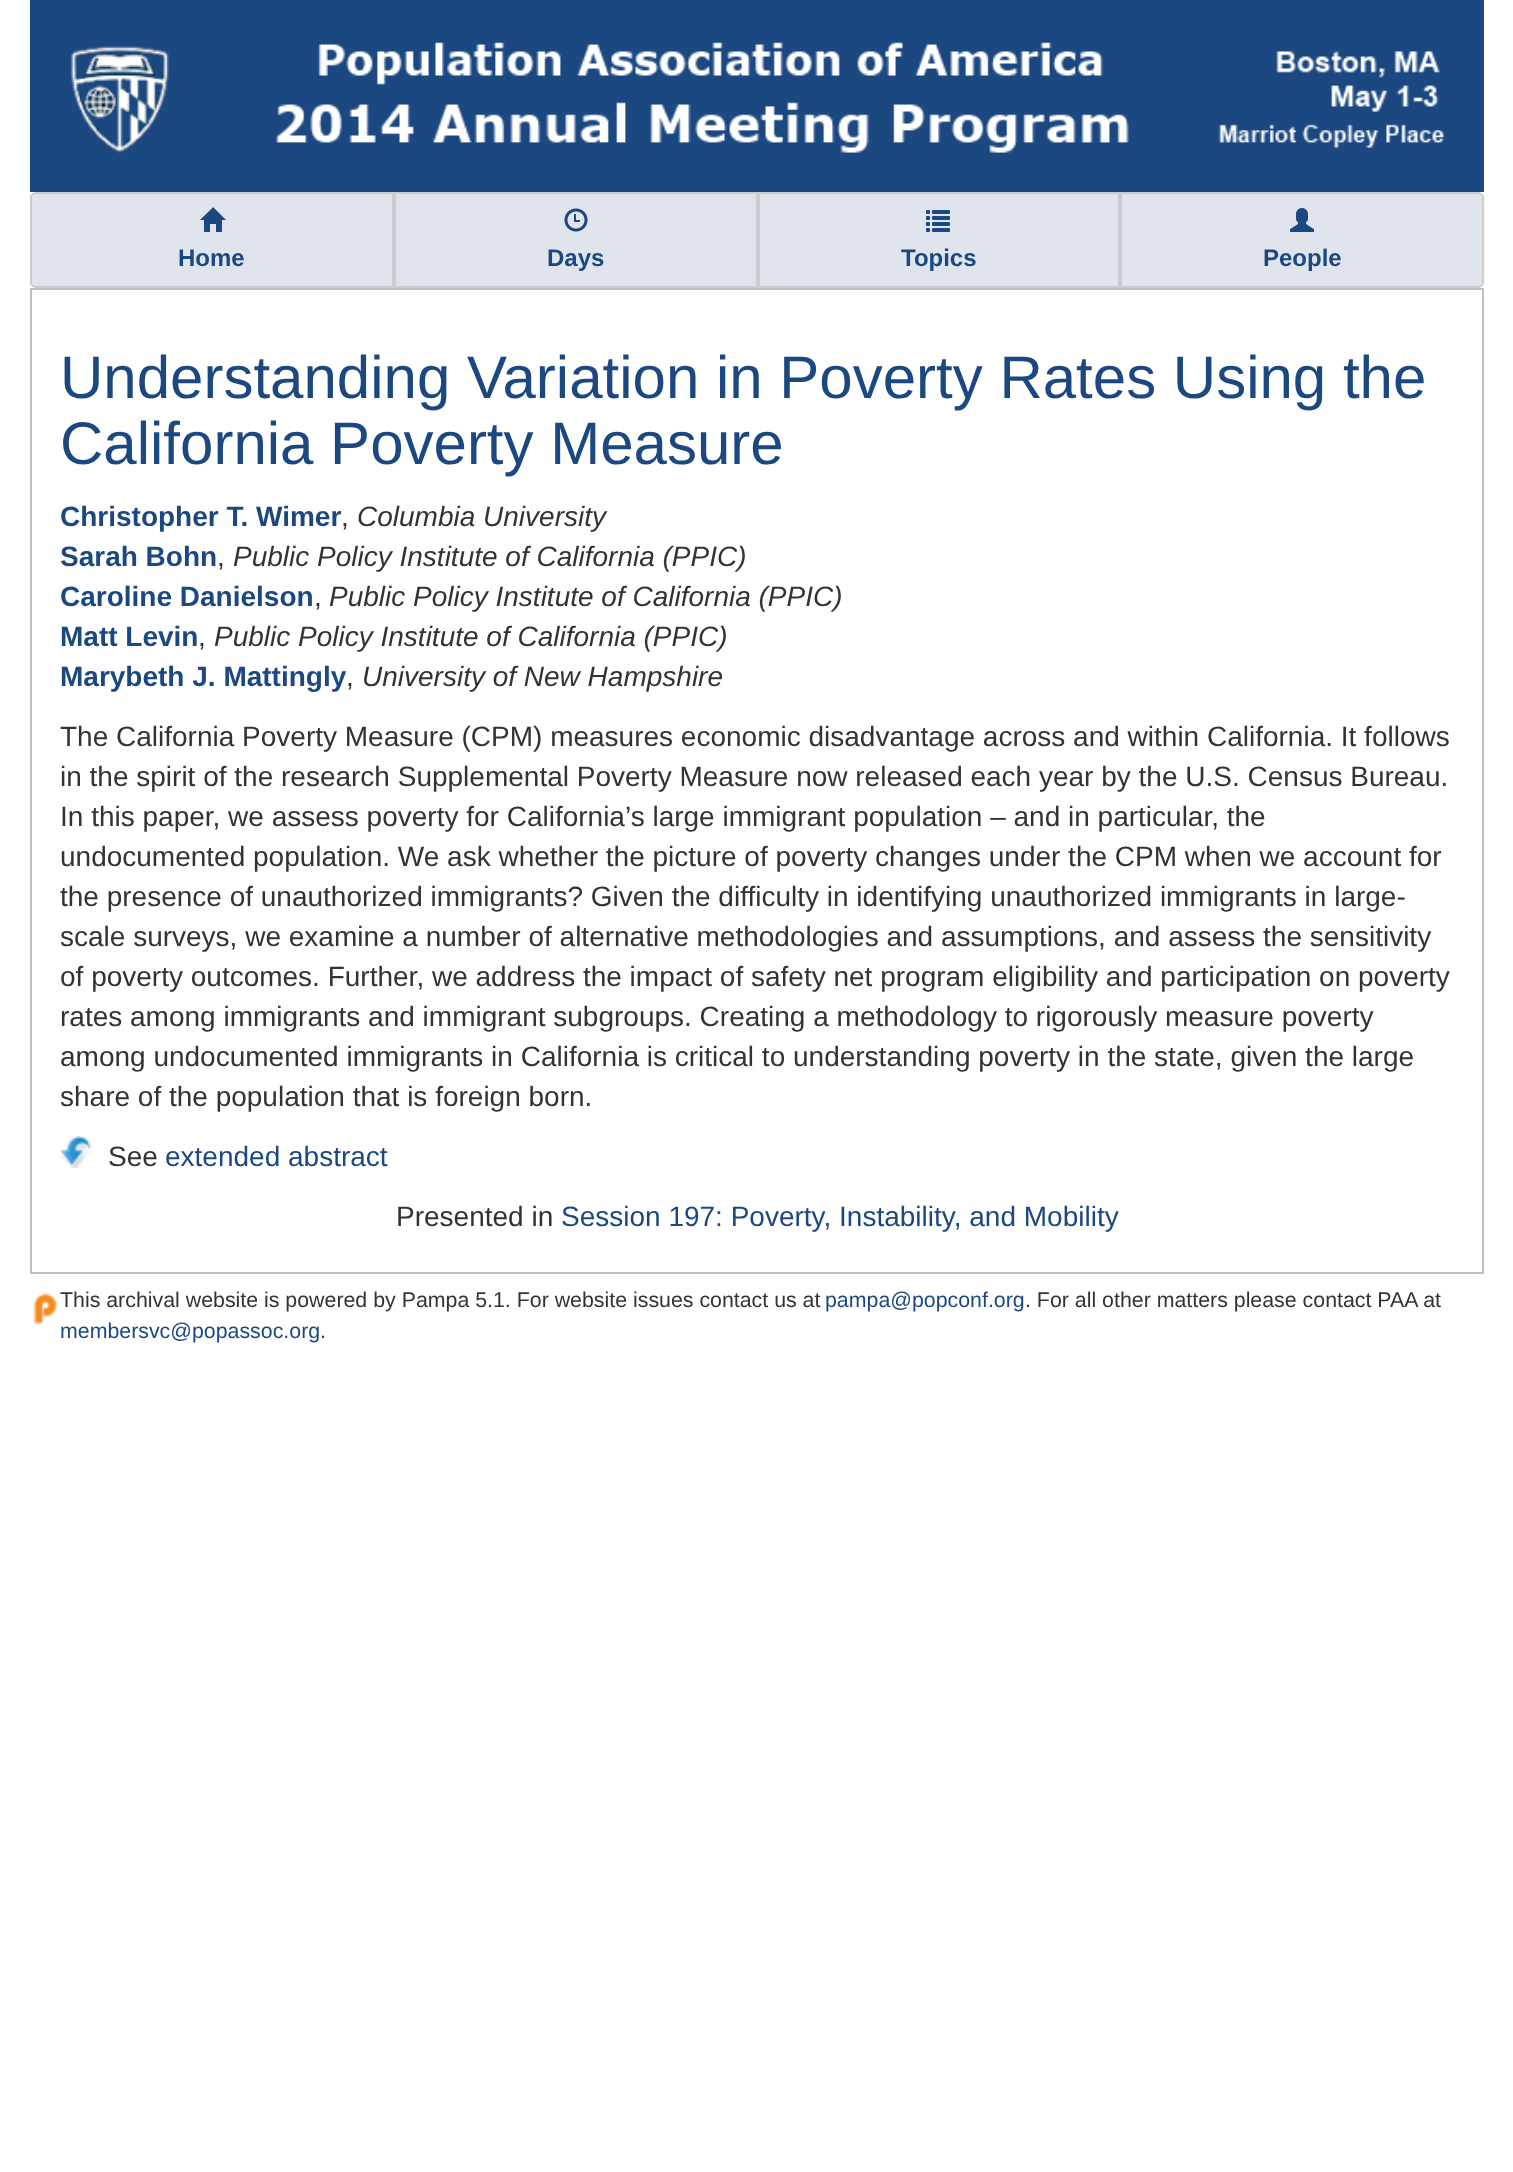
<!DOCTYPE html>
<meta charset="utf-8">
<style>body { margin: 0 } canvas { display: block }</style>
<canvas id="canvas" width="1513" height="2172"></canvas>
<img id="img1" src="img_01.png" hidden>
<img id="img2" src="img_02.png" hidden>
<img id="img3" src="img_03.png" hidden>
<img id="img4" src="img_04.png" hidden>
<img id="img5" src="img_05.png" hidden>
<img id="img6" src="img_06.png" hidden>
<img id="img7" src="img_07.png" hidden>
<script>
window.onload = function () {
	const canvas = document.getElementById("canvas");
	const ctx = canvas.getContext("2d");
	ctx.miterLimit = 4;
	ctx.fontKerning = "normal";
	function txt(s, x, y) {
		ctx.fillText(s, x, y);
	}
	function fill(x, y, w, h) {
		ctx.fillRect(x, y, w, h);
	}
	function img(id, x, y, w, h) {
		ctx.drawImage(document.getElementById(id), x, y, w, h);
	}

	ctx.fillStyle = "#FFFFFF";
	fill(0, 0, 1513, 2172);
	img("img1", 30, 0, 1454, 192);
	ctx.fillStyle = "#E0E4EC";
	ctx.beginPath();
	ctx.roundRect(31, 193, 362, 94, [5, 0, 0, 5]);
	ctx.fill();
	ctx.strokeStyle = "#CCCCCC";
	ctx.lineWidth = 2;
	ctx.stroke();
	img("img2", 200, 207, 26, 25);
	ctx.beginPath();
	ctx.rect(395, 193, 362, 94);
	ctx.fill();
	ctx.stroke();
	img("img3", 564, 208, 24, 24);
	ctx.beginPath();
	ctx.rect(759, 193, 360, 94);
	ctx.fill();
	ctx.stroke();
	img("img4", 926, 210, 24, 22);
	ctx.beginPath();
	ctx.roundRect(1121, 193, 362, 94, [0, 5, 5, 0]);
	ctx.fill();
	ctx.stroke();
	img("img5", 1290, 208, 24, 24);
	ctx.strokeStyle = "#C0C0C0";
	ctx.strokeRect(31, 289, 1452, 984);
	img("img6", 60, 1136, 32, 32);
	img("img7", 33, 1293, 24, 31);
	ctx.font = "bold 24px Liberation Sans";
	ctx.fillStyle = "#1C4882";
	txt("Home", 178, 266);
	txt("Days", 547, 266);
	txt("Topics", 901, 266);
	txt("People", 1263, 266);
	ctx.font = "60px Liberation Sans";
	txt("Understanding Variation in Poverty Rates Using the", 60, 398);
	txt("California Poverty Measure", 60, 464);
	ctx.font = "bold 28px Liberation Sans";
	txt("Christopher T. Wimer", 60, 526);
	ctx.font = "28px Liberation Sans";
	ctx.fillStyle = "#333333";
	txt(",", 341, 526);
	ctx.font = "italic 28px Liberation Sans";
	txt("Columbia University", 357, 526);
	ctx.font = "bold 28px Liberation Sans";
	ctx.fillStyle = "#1C4882";
	txt("Sarah Bohn", 60, 566);
	ctx.font = "28px Liberation Sans";
	ctx.fillStyle = "#333333";
	txt(",", 217, 566);
	ctx.font = "italic 28px Liberation Sans";
	txt("Public Policy Institute of California (PPIC)", 233, 566);
	ctx.font = "bold 28px Liberation Sans";
	ctx.fillStyle = "#1C4882";
	txt("Caroline Danielson", 60, 606);
	ctx.font = "28px Liberation Sans";
	ctx.fillStyle = "#333333";
	txt(",", 314, 606);
	ctx.font = "italic 28px Liberation Sans";
	txt("Public Policy Institute of California (PPIC)", 329, 606);
	ctx.font = "bold 28px Liberation Sans";
	ctx.fillStyle = "#1C4882";
	txt("Matt Levin", 60, 646);
	ctx.font = "28px Liberation Sans";
	ctx.fillStyle = "#333333";
	txt(",", 198, 646);
	ctx.font = "italic 28px Liberation Sans";
	txt("Public Policy Institute of California (PPIC)", 214, 646);
	ctx.font = "bold 28px Liberation Sans";
	ctx.fillStyle = "#1C4882";
	txt("Marybeth J. Mattingly", 60, 686);
	ctx.font = "28px Liberation Sans";
	ctx.fillStyle = "#333333";
	txt(",", 346, 686);
	ctx.font = "italic 28px Liberation Sans";
	txt("University of New Hampshire", 362, 686);
	ctx.font = "28px Liberation Sans";
	txt("The California Poverty Measure (CPM) measures economic disadvantage across and within California. It follows", 60, 746);
	txt("in the spirit of the research Supplemental Poverty Measure now released each year by the U.S. Census Bureau.", 60, 786);
	txt("In this paper, we assess poverty for California’s large immigrant population – and in particular, the", 60, 826);
	txt("undocumented population. We ask whether the picture of poverty changes under the CPM when we account for", 60, 866);
	txt("the presence of unauthorized immigrants? Given the difficulty in identifying unauthorized immigrants in large-", 60, 906);
	txt("scale surveys, we examine a number of alternative methodologies and assumptions, and assess the sensitivity", 60, 946);
	txt("of poverty outcomes. Further, we address the impact of safety net program eligibility and participation on poverty", 60, 986);
	txt("rates among immigrants and immigrant subgroups. Creating a methodology to rigorously measure poverty", 60, 1026);
	txt("among undocumented immigrants in California is critical to understanding poverty in the state, given the large", 60, 1066);
	txt("share of the population that is foreign born.", 60, 1106);
	txt("See", 108, 1166);
	ctx.fillStyle = "#1C4882";
	txt("extended abstract", 165, 1166);
	ctx.fillStyle = "#333333";
	txt("Presented in", 396, 1226);
	ctx.fillStyle = "#1C4882";
	txt("Session 197: Poverty, Instability, and Mobility", 561, 1226);
	ctx.font = "21.35px Liberation Sans";
	ctx.fillStyle = "#333333";
	txt("This archival website is powered by Pampa 5.1. For website issues contact us at", 60, 1307);
	ctx.fillStyle = "#1C4882";
	txt("pampa@popconf.org", 825, 1307);
	ctx.fillStyle = "#333333";
	txt(". For all other matters please contact PAA at", 1025, 1307);
	ctx.fillStyle = "#1C4882";
	txt("membersvc@popassoc.org", 60, 1338);
	ctx.fillStyle = "#333333";
	txt(".", 320, 1338);
};
</script>
